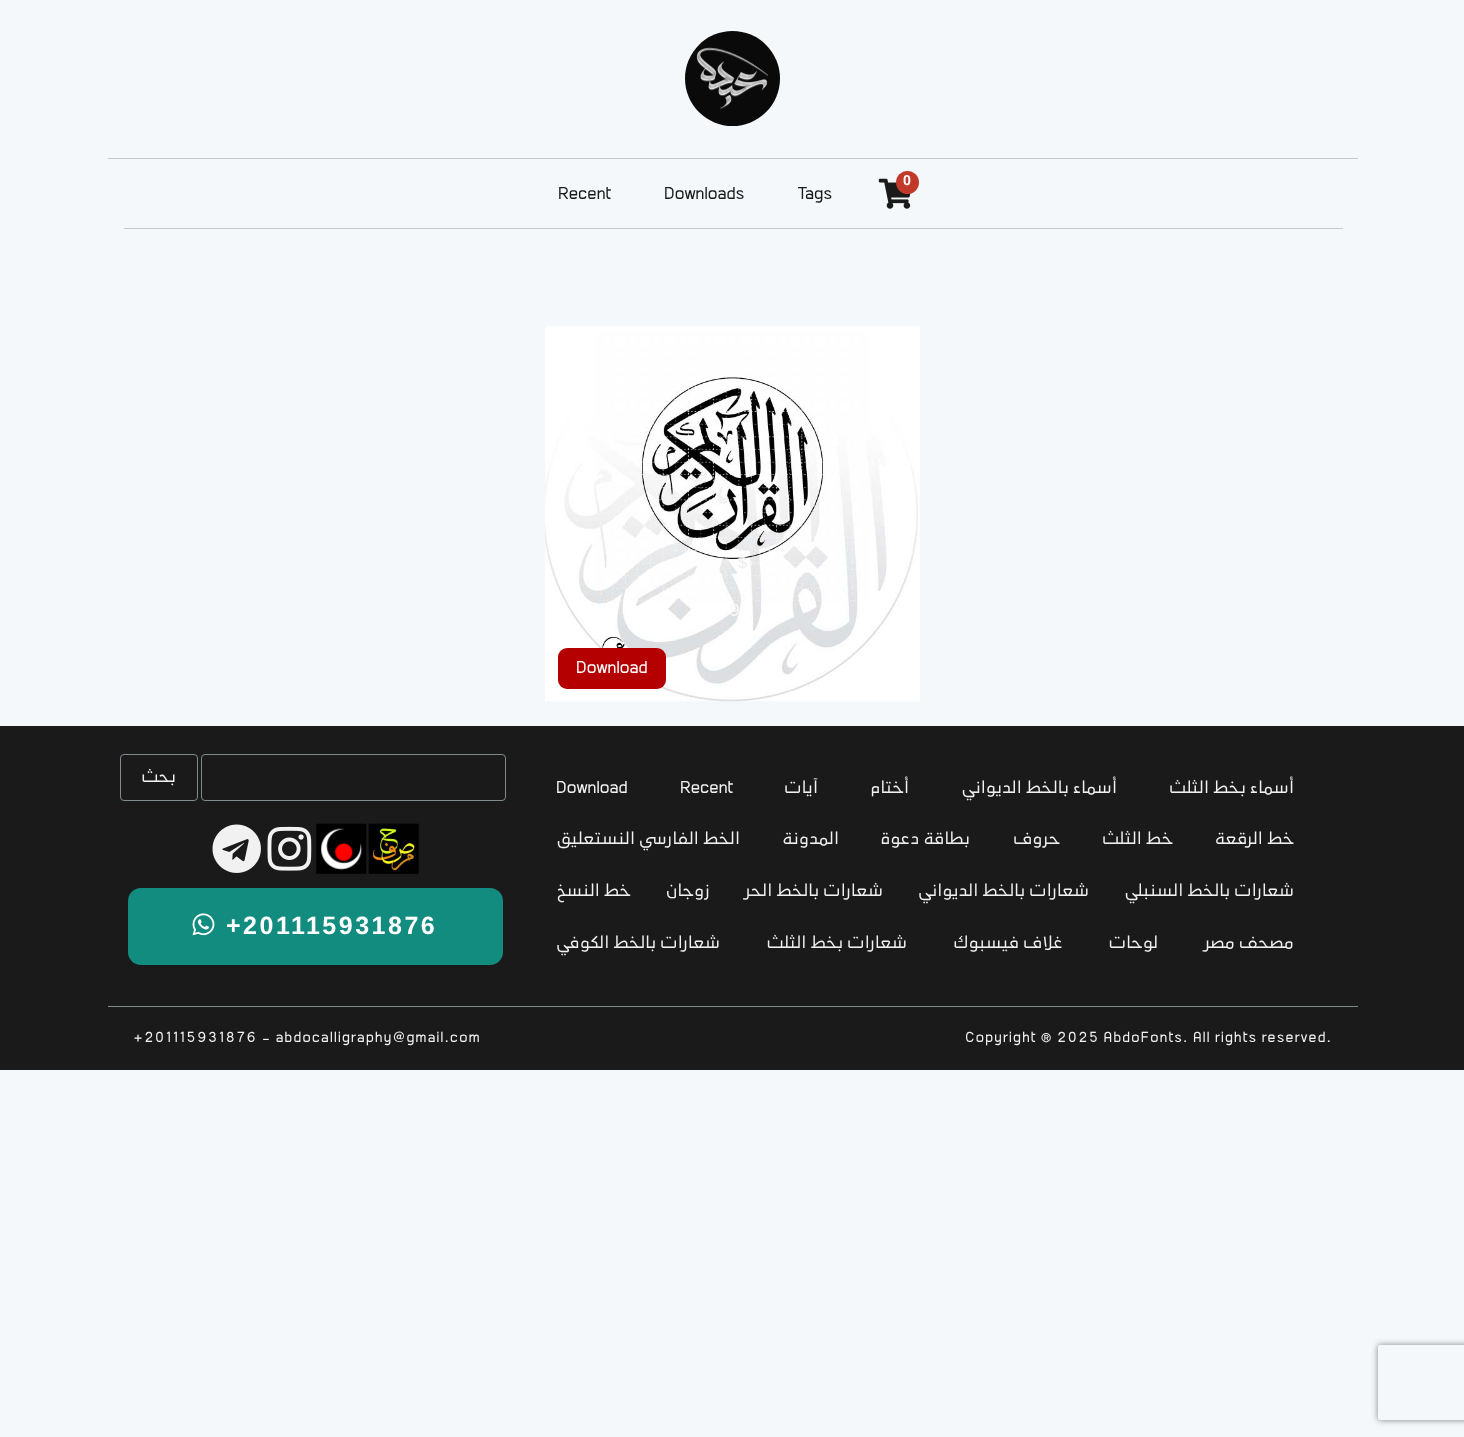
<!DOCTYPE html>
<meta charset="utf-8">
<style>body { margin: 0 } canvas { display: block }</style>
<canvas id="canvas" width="1464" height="1437"></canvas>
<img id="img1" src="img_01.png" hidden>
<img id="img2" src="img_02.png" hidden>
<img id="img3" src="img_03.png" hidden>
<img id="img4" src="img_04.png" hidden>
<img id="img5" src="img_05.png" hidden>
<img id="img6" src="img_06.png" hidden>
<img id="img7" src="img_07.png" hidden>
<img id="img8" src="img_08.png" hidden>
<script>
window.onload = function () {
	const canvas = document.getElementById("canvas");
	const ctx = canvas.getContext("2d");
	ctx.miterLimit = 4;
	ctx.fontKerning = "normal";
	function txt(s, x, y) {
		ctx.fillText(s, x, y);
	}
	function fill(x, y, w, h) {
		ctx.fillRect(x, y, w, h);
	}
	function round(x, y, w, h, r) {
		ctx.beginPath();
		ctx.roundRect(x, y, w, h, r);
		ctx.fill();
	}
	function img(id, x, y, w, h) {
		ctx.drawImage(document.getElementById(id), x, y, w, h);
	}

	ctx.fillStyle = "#F5F8FA";
	fill(0, 0, 1464, 1437);
	ctx.fillStyle = "#0A0A0A";
	ctx.beginPath();
	ctx.arc(732.5, 78.5, 47.5, 0, Math.PI * 2);
	ctx.fill();
	img("img1", 696, 47, 72, 63);
	ctx.fillStyle = "#C8C8C8";
	fill(108, 158, 1250, 1);
	img("img2", 878, 178, 33, 31);
	ctx.fillStyle = "#C0392B";
	ctx.beginPath();
	ctx.arc(907.5, 182.5, 11.5, 0, Math.PI * 2);
	ctx.fill();
	ctx.fillStyle = "#C8C8C8";
	fill(124, 228, 1219, 1);
	img("img3", 545, 326, 375, 376);
	ctx.fillStyle = "#B40000";
	round(558, 648, 108, 41, 9);
	ctx.fillStyle = "#1A1A1A";
	fill(0, 726, 1464, 344);
	ctx.beginPath();
	ctx.roundRect(201.5, 754.5, 304, 46, 3.5);
	ctx.strokeStyle = "#7F8C8D";
	ctx.stroke();
	ctx.beginPath();
	ctx.roundRect(120.5, 754.5, 77, 46, 3.5);
	ctx.stroke();
	img("img4", 368, 823, 51, 51);
	img("img5", 316, 823, 51, 51);
	img("img6", 267, 826, 45, 45);
	img("img7", 212, 824, 49, 49);
	ctx.fillStyle = "#128C7E";
	round(128, 888, 375, 77, 13);
	img("img8", 192, 913, 23, 23);
	ctx.fillStyle = "#7F8C8D";
	fill(108, 1006, 1250, 1);
	ctx.save();
	ctx.beginPath();
	ctx.moveTo(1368, 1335);
	ctx.lineTo(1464, 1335);
	ctx.lineTo(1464, 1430);
	ctx.lineTo(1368, 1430);
	ctx.closePath();
	ctx.moveTo(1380.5, 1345);
	ctx.lineTo(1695.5, 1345);
	ctx.bezierCurveTo(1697, 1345, 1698, 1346, 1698, 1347.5);
	ctx.lineTo(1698, 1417.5);
	ctx.bezierCurveTo(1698, 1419, 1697, 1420, 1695.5, 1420);
	ctx.lineTo(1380.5, 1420);
	ctx.bezierCurveTo(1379, 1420, 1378, 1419, 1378, 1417.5);
	ctx.lineTo(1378, 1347.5);
	ctx.bezierCurveTo(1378, 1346, 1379, 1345, 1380.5, 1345);
	ctx.closePath();
	ctx.clip("evenodd");
	ctx.fillStyle = "#808080";
	ctx.filter = "blur(3px)";
	ctx.beginPath();
	ctx.roundRect(1378, 1345, 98, 75, 2.5);
	ctx.fill();
	ctx.filter = "none";
	ctx.restore();
	ctx.font = "bold 13.75px Roboto";
	ctx.fillStyle = "#FFFFFF";
	txt("0", 903, 185);
	ctx.font = "16.25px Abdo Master";
	ctx.fillStyle = "#1A1A1A";
	txt("Tags", 798, 199);
	txt("Downloads", 664, 199);
	txt("Recent", 558, 199);
	ctx.font = "16.25px Liberation Sans";
	ctx.fillStyle = "#EBEBEB";
	txt("$", 738, 568);
	ctx.font = "16.25px Abdo Master";
	ctx.fillStyle = "#F9F9F9";
	txt("9", 729, 616);
	ctx.fillStyle = "#FFFFFF";
	txt("Download", 576, 673);
	ctx.direction = "rtl";
	ctx.fillStyle = "#F1F1F1";
	txt("أسماء بخط الثلث", 1294, 793);
	txt("أسماء بالخط الديواني", 1117, 793);
	txt("أختام", 909, 793);
	txt("آيات", 818, 793);
	ctx.direction = "ltr";
	txt("Recent", 680, 793);
	txt("Download", 556, 793);
	ctx.direction = "rtl";
	txt("خط الرقعة", 1294, 844);
	txt("خط الثلث", 1173, 844);
	txt("حروف", 1060, 844);
	txt("بطاقة دعوة", 970, 844);
	txt("المدونة", 839, 844);
	txt("الخط الفارسي النستعليق", 740, 844);
	txt("شعارات بالخط السنبلي", 1294, 896);
	txt("شعارات بالخط الديواني", 1089, 896);
	txt("شعارات بالخط الحر", 883, 896);
	txt("زوجان", 710, 896);
	txt("خط النسخ", 631, 896);
	txt("مصحف مصر", 1294, 948);
	txt("لوحات", 1158, 948);
	txt("غلاف فيسبوك", 1063, 948);
	txt("شعارات بخط الثلث", 907, 948);
	txt("شعارات بالخط الكوفي", 720, 948);
	txt("بحث", 176, 782);
	ctx.letterSpacing = "2.5px";
	ctx.direction = "ltr";
	ctx.font = "bold 25px Liberation Sans";
	ctx.fillStyle = "#FFFFFF";
	txt("+201115931876", 226, 934);
	ctx.letterSpacing = "1.25px";
	ctx.font = "13.75px Abdo Master";
	ctx.fillStyle = "#F1F1F1";
	txt("Copyright © 2025 AbdoFonts. All rights reserved.", 965, 1042);
	txt("+201115931876 - abdocalligraphy@gmail.com", 133, 1042);
};
</script>
